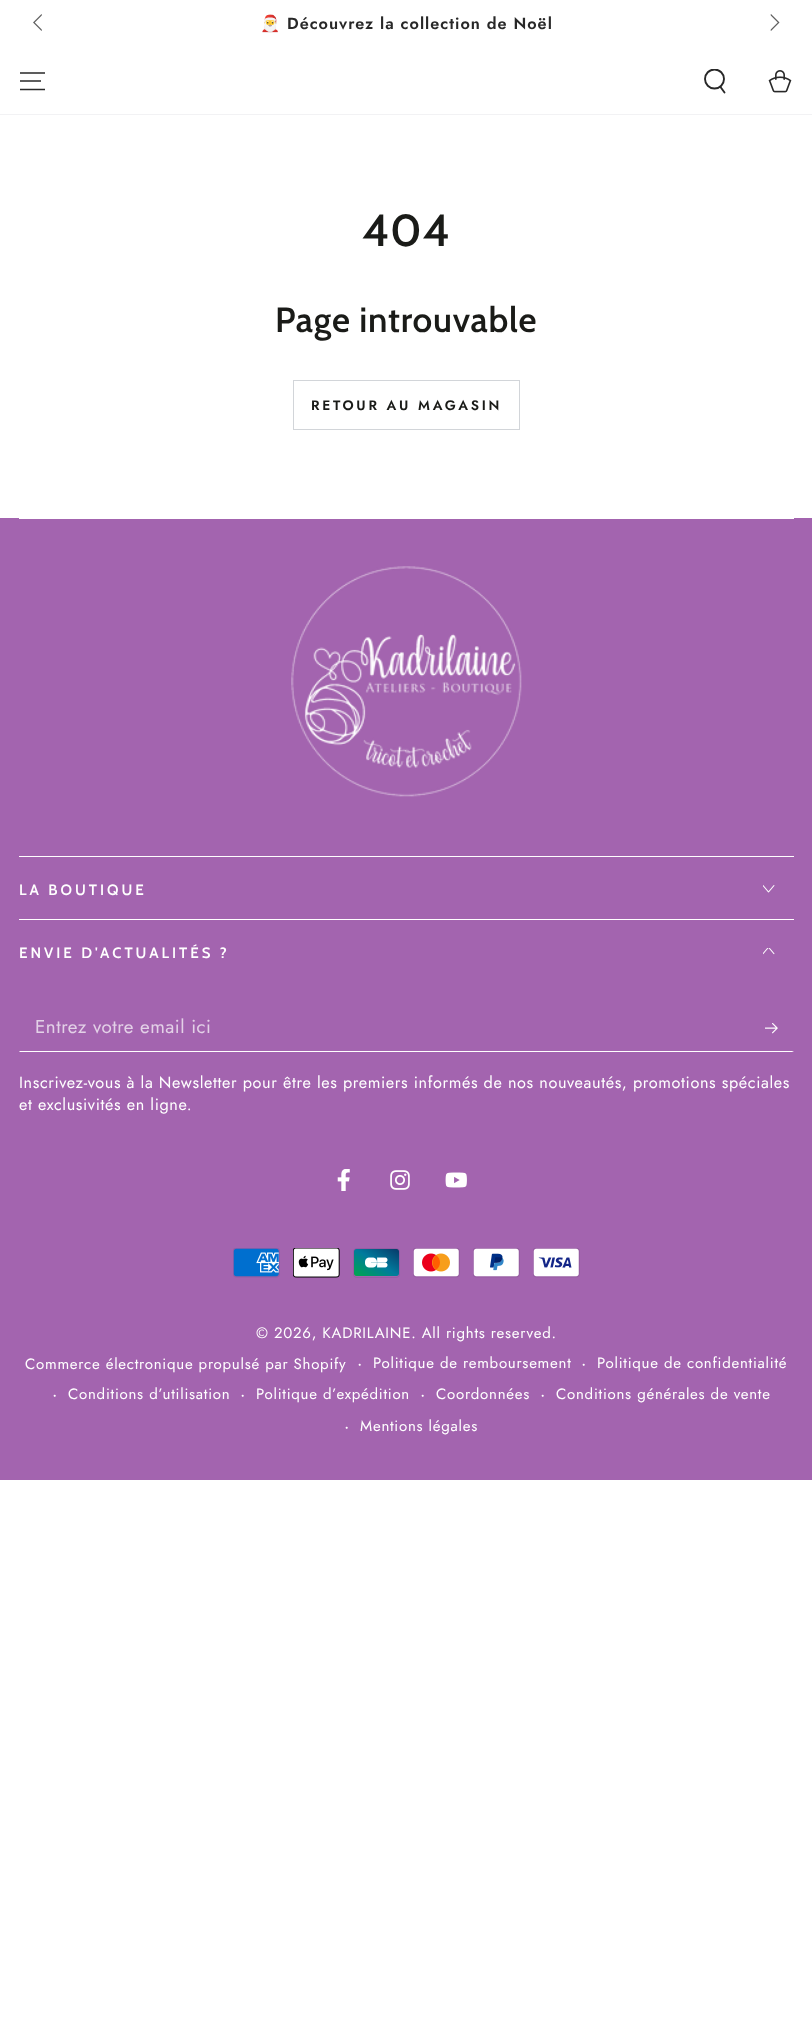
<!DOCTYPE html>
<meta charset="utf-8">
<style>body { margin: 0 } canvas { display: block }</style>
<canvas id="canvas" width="812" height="2042"></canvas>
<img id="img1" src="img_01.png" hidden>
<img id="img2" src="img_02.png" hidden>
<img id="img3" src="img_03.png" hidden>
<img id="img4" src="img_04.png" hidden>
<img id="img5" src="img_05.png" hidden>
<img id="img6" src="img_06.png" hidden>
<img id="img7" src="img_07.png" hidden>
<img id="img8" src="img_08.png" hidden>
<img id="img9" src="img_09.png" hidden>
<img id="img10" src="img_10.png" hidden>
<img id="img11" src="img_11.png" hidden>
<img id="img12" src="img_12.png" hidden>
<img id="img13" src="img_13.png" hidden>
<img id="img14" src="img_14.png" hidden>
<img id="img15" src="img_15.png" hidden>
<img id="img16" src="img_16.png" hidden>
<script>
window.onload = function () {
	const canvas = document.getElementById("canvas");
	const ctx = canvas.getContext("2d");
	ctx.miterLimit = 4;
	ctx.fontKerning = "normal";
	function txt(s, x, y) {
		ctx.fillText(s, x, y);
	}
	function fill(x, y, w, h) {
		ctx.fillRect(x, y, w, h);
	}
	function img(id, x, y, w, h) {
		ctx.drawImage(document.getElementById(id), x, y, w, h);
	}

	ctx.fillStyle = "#FFFFFF";
	fill(0, 0, 812, 2042);
	img("img1", 33, 14, 9, 17);
	img("img2", 770, 14, 10, 17);
	ctx.fillStyle = "#F2F2F4";
	ctx.beginPath();
	ctx.moveTo(0, 114);
	ctx.lineTo(0, 115);
	ctx.lineTo(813, 115);
	ctx.lineTo(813, 50);
	ctx.lineTo(812, 50);
	ctx.lineTo(812, 114);
	ctx.closePath();
	ctx.fill();
	ctx.beginPath();
	ctx.moveTo(20, 89.5);
	ctx.lineTo(45, 89.5);
	ctx.moveTo(20, 81);
	ctx.lineTo(41, 81);
	ctx.moveTo(20, 73);
	ctx.lineTo(45, 73);
	ctx.strokeStyle = "#282828";
	ctx.lineWidth = 1.7;
	ctx.stroke();
	ctx.save();
	ctx.beginPath();
	ctx.rect(703, 69, 25, 25);
	ctx.clip();
	ctx.beginPath();
	ctx.arc(714.5, 79, 9.5, 0, Math.PI * 2);
	ctx.lineWidth = 1.9;
	ctx.stroke();
	ctx.restore();
	ctx.beginPath();
	ctx.moveTo(720.5, 87);
	ctx.lineTo(724.5, 92.5);
	ctx.lineWidth = 1.9;
	ctx.lineCap = "round";
	ctx.stroke();
	img("img3", 768, 70, 24, 23);
	ctx.strokeStyle = "#D2D5D9";
	ctx.lineWidth = 1;
	ctx.strokeRect(293.5, 380.5, 226, 49);
	ctx.fillStyle = "#A364AF";
	fill(0, 518, 812, 962);
	ctx.fillStyle = "#FFFFFF";
	fill(19, 518, 775, 1);
	fill(19, 856, 775, 1);
	img("img4", 291, 566, 231, 231);
	fill(19, 919, 775, 1);
	img("img5", 763, 885, 12, 8);
	img("img6", 763, 948, 12, 7);
	ctx.beginPath();
	ctx.moveTo(794, 1052);
	ctx.lineTo(19, 1052);
	ctx.lineTo(20, 1051);
	ctx.lineTo(792, 1051);
	ctx.closePath();
	ctx.fill();
	img("img7", 765, 1023, 13, 11);
	img("img8", 337, 1169, 13, 22);
	img("img9", 390, 1170, 20, 20);
	img("img10", 445, 1172, 22, 16);
	img("img11", 233, 1248, 47, 30);
	img("img12", 293, 1248, 47, 30);
	img("img13", 353, 1248, 47, 30);
	img("img14", 413, 1248, 47, 30);
	img("img15", 473, 1248, 47, 30);
	img("img16", 533, 1248, 47, 30);
	ctx.letterSpacing = "1px";
	ctx.font = "bold 16.25px Noto Color Emoji";
	ctx.fillStyle = "#282828";
	txt("🎅", 260, 29);
	ctx.font = "600 16.25px Jost";
	txt("Découvrez la collection de Noël", 287, 29);
	ctx.letterSpacing = "0.75px";
	ctx.font = "600 45px Cabin";
	ctx.fillStyle = "#1A1B18";
	txt("404", 362, 246);
	ctx.font = "600 35px Cabin";
	txt("Page introuvable", 275, 332);
	ctx.letterSpacing = "2.75px";
	ctx.font = "600 13.75px Jost";
	txt("RETOUR AU MAGASIN", 311, 410);
	ctx.letterSpacing = "3px";
	ctx.font = "600 15px Cabin";
	ctx.fillStyle = "#FFFFFF";
	txt("LA BOUTIQUE", 19, 895);
	txt("ENVIE D'ACTUALITÉS ?", 19, 958);
	ctx.letterSpacing = "0.5px";
	ctx.font = "18.75px Jost";
	ctx.fillStyle = "#E3D1E7";
	txt("Entrez votre email ici", 35, 1033);
	ctx.letterSpacing = "0.62px";
	ctx.font = "16.25px Jost";
	ctx.fillStyle = "#FFFFFF";
	txt("Inscrivez-vous à la Newsletter pour être les premiers informés de nos nouveautés, promotions spéciales", 19, 1088);
	txt("et exclusivités en ligne.", 19, 1110);
	ctx.letterSpacing = "0.75px";
	ctx.font = "15px Jost";
	txt("© 2026, KADRILAINE. All rights reserved.", 256, 1338);
	txt("Commerce électronique propulsé par Shopify", 25, 1369);
	ctx.font = "18px Jost";
	txt("·", 357, 1369);
	ctx.font = "15px Jost";
	txt("Politique de remboursement", 373, 1368);
	ctx.font = "18px Jost";
	txt("·", 581, 1369);
	ctx.font = "15px Jost";
	txt("Politique de confidentialité", 597, 1368);
	ctx.font = "18px Jost";
	txt("·", 52, 1400);
	ctx.font = "15px Jost";
	txt("Conditions d’utilisation", 68, 1399);
	ctx.font = "18px Jost";
	txt("·", 240, 1400);
	ctx.font = "15px Jost";
	txt("Politique d’expédition", 256, 1399);
	ctx.font = "18px Jost";
	txt("·", 420, 1400);
	ctx.font = "15px Jost";
	txt("Coordonnées", 436, 1399);
	ctx.font = "18px Jost";
	txt("·", 540, 1400);
	ctx.font = "15px Jost";
	txt("Conditions générales de vente", 556, 1399);
	ctx.font = "18px Jost";
	txt("·", 344, 1432);
	ctx.font = "15px Jost";
	txt("Mentions légales", 360, 1431);
};
</script>
